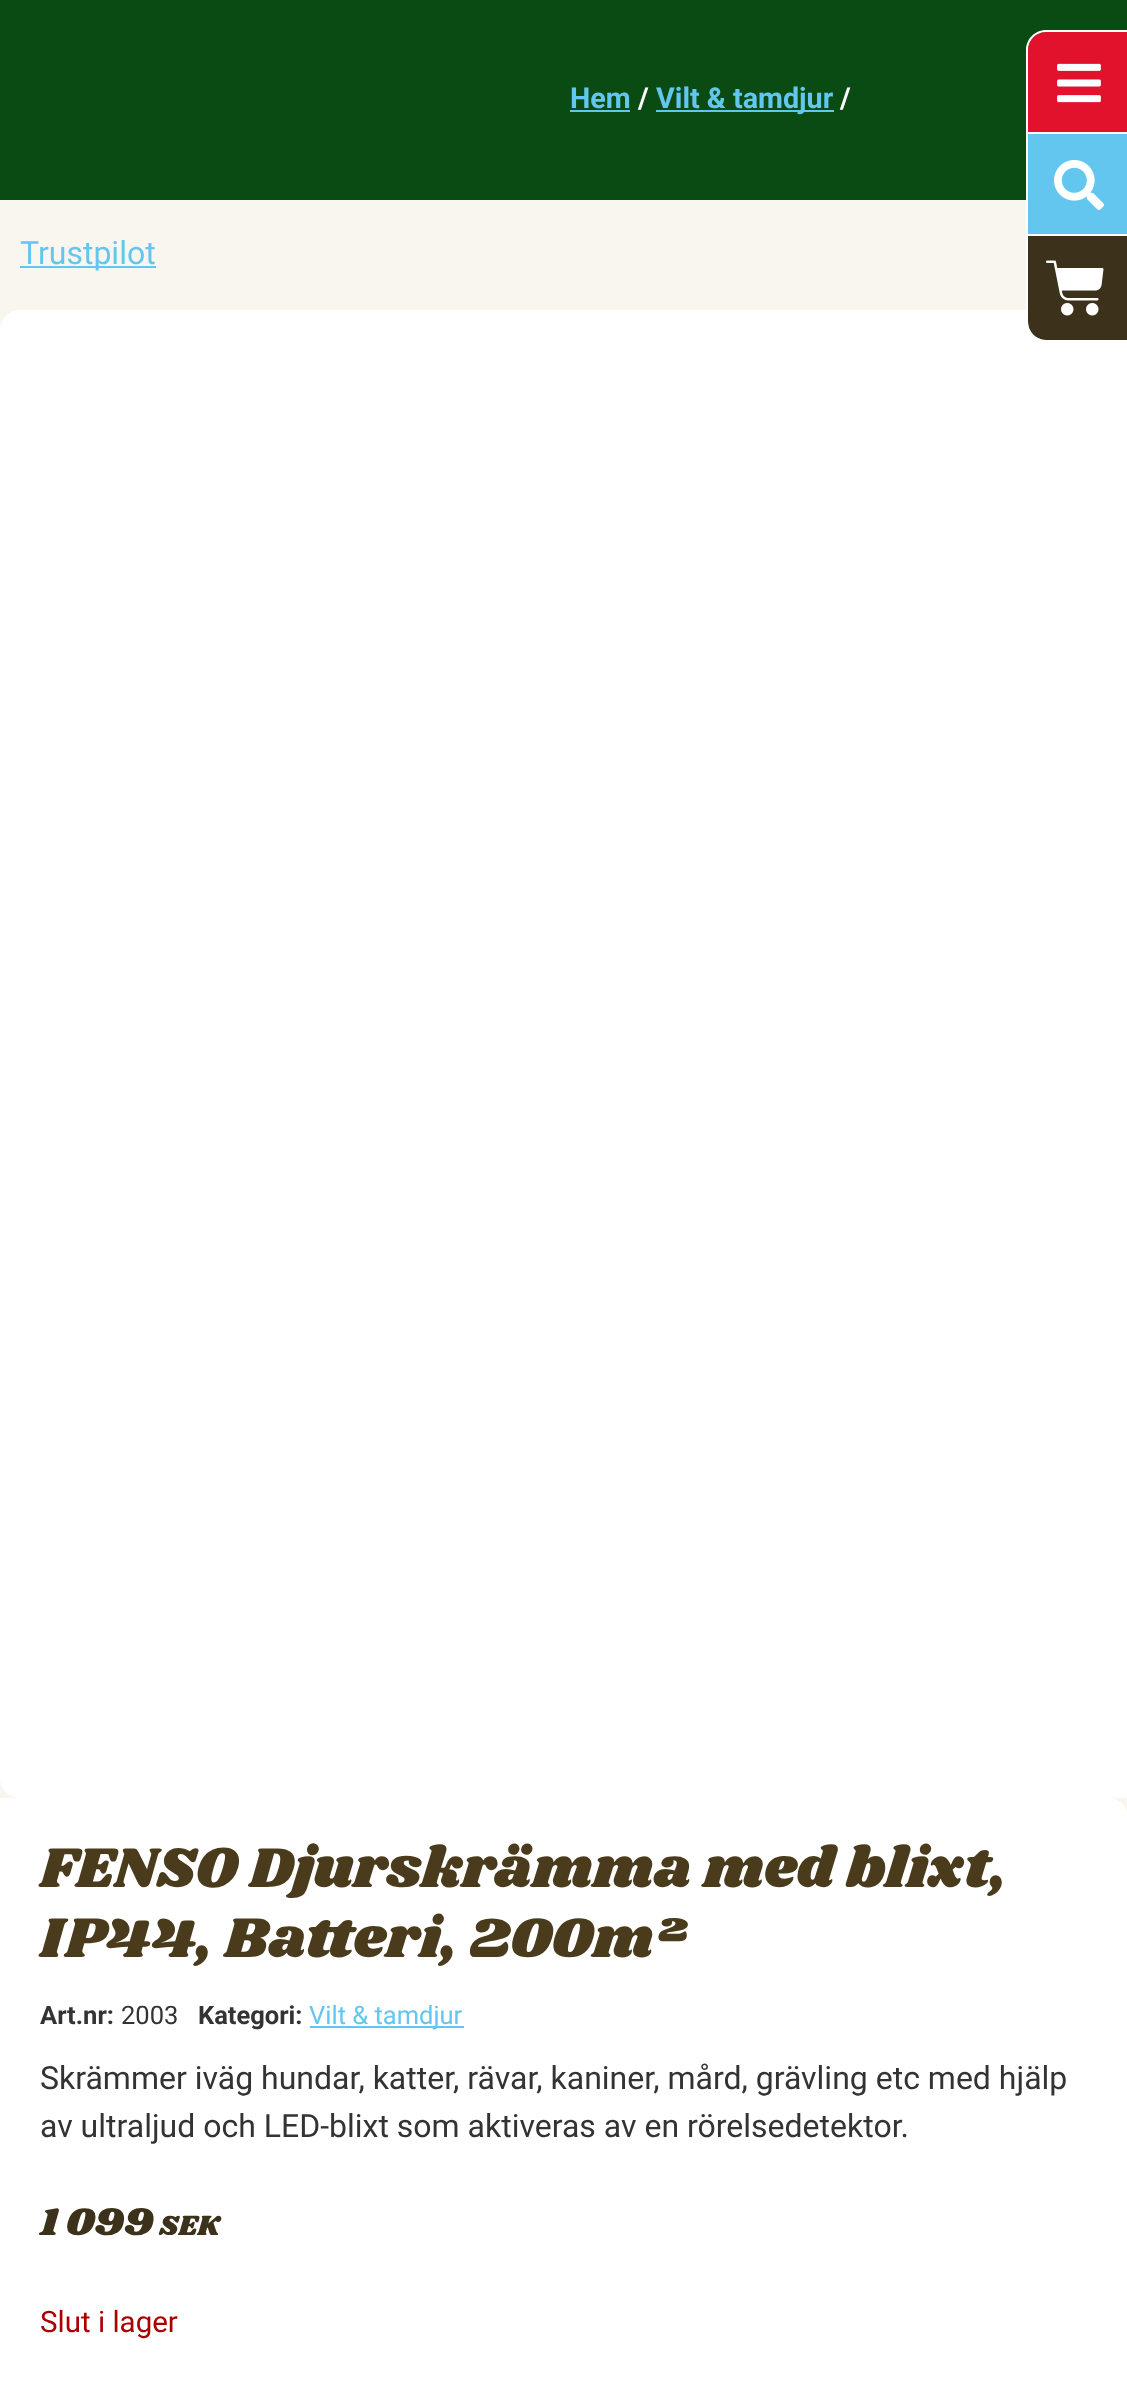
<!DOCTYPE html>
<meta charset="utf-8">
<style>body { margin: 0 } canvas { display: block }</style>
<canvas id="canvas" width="1127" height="2394"></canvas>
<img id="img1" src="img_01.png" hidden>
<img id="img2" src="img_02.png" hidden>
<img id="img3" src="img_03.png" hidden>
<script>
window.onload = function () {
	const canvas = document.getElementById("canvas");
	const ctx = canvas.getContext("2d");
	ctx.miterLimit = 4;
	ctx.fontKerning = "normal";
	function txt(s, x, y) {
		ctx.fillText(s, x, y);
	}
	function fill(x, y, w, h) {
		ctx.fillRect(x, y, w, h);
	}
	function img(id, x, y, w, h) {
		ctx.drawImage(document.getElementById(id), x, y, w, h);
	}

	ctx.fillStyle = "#F9F6EF";
	fill(0, 0, 1127, 2394);
	ctx.fillStyle = "#0A4B13";
	fill(0, 0, 1127, 200);
	ctx.fillStyle = "#63C6EF";
	fill(570, 110, 60, 2);
	fill(656, 110, 178, 2);
	fill(20, 266, 136, 2);
	ctx.fillStyle = "#FFFFFF";
	ctx.beginPath();
	ctx.moveTo(20, 310);
	ctx.lineTo(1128, 310);
	ctx.lineTo(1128, 1798);
	ctx.lineTo(20, 1798);
	ctx.bezierCurveTo(9, 1798, 0, 1789, 0, 1778);
	ctx.lineTo(0, 330);
	ctx.bezierCurveTo(0, 319, 9, 310, 20, 310);
	ctx.closePath();
	ctx.fill();
	ctx.beginPath();
	ctx.moveTo(0, 1798);
	ctx.lineTo(1108, 1798);
	ctx.bezierCurveTo(1119, 1798, 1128, 1807, 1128, 1818);
	ctx.lineTo(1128, 2394);
	ctx.bezierCurveTo(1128, 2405, 1119, 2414, 1108, 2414);
	ctx.lineTo(0, 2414);
	ctx.closePath();
	ctx.fill();
	ctx.fillStyle = "#63C6EF";
	fill(310, 2026, 154, 2);
	ctx.fillStyle = "#E3122C";
	ctx.beginPath();
	ctx.moveTo(1046, 32);
	ctx.lineTo(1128, 32);
	ctx.lineTo(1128, 132);
	ctx.lineTo(1028, 132);
	ctx.lineTo(1028, 50);
	ctx.bezierCurveTo(1028, 40, 1036, 32, 1046, 32);
	ctx.closePath();
	ctx.fill();
	ctx.fillStyle = "#FFFFFF";
	ctx.beginPath();
	ctx.moveTo(1046, 30);
	ctx.lineTo(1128, 30);
	ctx.lineTo(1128, 132);
	ctx.lineTo(1026, 132);
	ctx.lineTo(1026, 50);
	ctx.bezierCurveTo(1026, 39, 1035, 30, 1046, 30);
	ctx.closePath();
	ctx.moveTo(1046, 32);
	ctx.lineTo(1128, 32);
	ctx.lineTo(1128, 132);
	ctx.lineTo(1028, 132);
	ctx.lineTo(1028, 50);
	ctx.bezierCurveTo(1028, 40, 1036, 32, 1046, 32);
	ctx.closePath();
	ctx.fill("evenodd");
	img("img1", 1057, 63, 44, 40);
	ctx.fillStyle = "#63C6EF";
	fill(1028, 134, 99, 100);
	ctx.fillStyle = "#FFFFFF";
	fill(1026, 132, 101, 2);
	fill(1026, 132, 2, 102);
	img("img2", 1054, 160, 50, 50);
	ctx.fillStyle = "#3C311A";
	ctx.beginPath();
	ctx.moveTo(1028, 236);
	ctx.lineTo(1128, 236);
	ctx.lineTo(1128, 340);
	ctx.lineTo(1046, 340);
	ctx.bezierCurveTo(1036, 340, 1028, 332, 1028, 322);
	ctx.closePath();
	ctx.fill();
	ctx.fillStyle = "#FFFFFF";
	ctx.beginPath();
	ctx.moveTo(1026, 234);
	ctx.lineTo(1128, 234);
	ctx.lineTo(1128, 342);
	ctx.lineTo(1046, 342);
	ctx.bezierCurveTo(1035, 342, 1026, 333, 1026, 322);
	ctx.closePath();
	ctx.moveTo(1028, 236);
	ctx.lineTo(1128, 236);
	ctx.lineTo(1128, 340);
	ctx.lineTo(1046, 340);
	ctx.bezierCurveTo(1036, 340, 1028, 332, 1028, 322);
	ctx.closePath();
	ctx.fill("evenodd");
	img("img3", 1046, 260, 58, 56);
	ctx.font = "bold 28.75px Roboto";
	ctx.fillStyle = "#63C6EF";
	txt("Hem", 570, 108);
	ctx.fillStyle = "#FFFFFF";
	txt("/", 638, 108);
	ctx.fillStyle = "#63C6EF";
	txt("Vilt & tamdjur", 656, 108);
	ctx.fillStyle = "#FFFFFF";
	txt("/", 840, 108);
	ctx.font = "32px Roboto";
	ctx.fillStyle = "#63C6EF";
	txt("Trustpilot", 20, 264);
	ctx.font = "58px Shrikhand";
	ctx.fillStyle = "#4A3B1D";
	txt("FENSO Djurskrämma med blixt,", 40, 1887);
	txt("IP44, Batteri, 200m²", 40, 1957);
	ctx.font = "bold 25.5px Roboto";
	ctx.fillStyle = "#333333";
	txt("Art.nr:", 40, 2024);
	ctx.font = "25.5px Roboto";
	txt("2003", 121, 2024);
	ctx.font = "bold 25.5px Roboto";
	txt("Kategori:", 198, 2024);
	ctx.font = "25.5px Roboto";
	ctx.fillStyle = "#63C6EF";
	txt("Vilt & tamdjur", 309, 2024);
	ctx.font = "32px Roboto";
	ctx.fillStyle = "#333333";
	txt("Skrämmer iväg hundar, katter, rävar, kaniner, mård, grävling etc med hjälp", 40, 2089);
	txt("av ultraljud och LED-blixt som aktiveras av en rörelsedetektor.", 40, 2137);
	ctx.font = "40px Shrikhand";
	ctx.fillStyle = "#3C311A";
	txt("1 099", 40, 2235);
	ctx.font = "28.75px Shrikhand";
	txt("SEK", 159, 2235);
	ctx.font = "29.5px Roboto";
	ctx.fillStyle = "#AA0000";
	txt("Slut i lager", 40, 2332);
};
</script>
